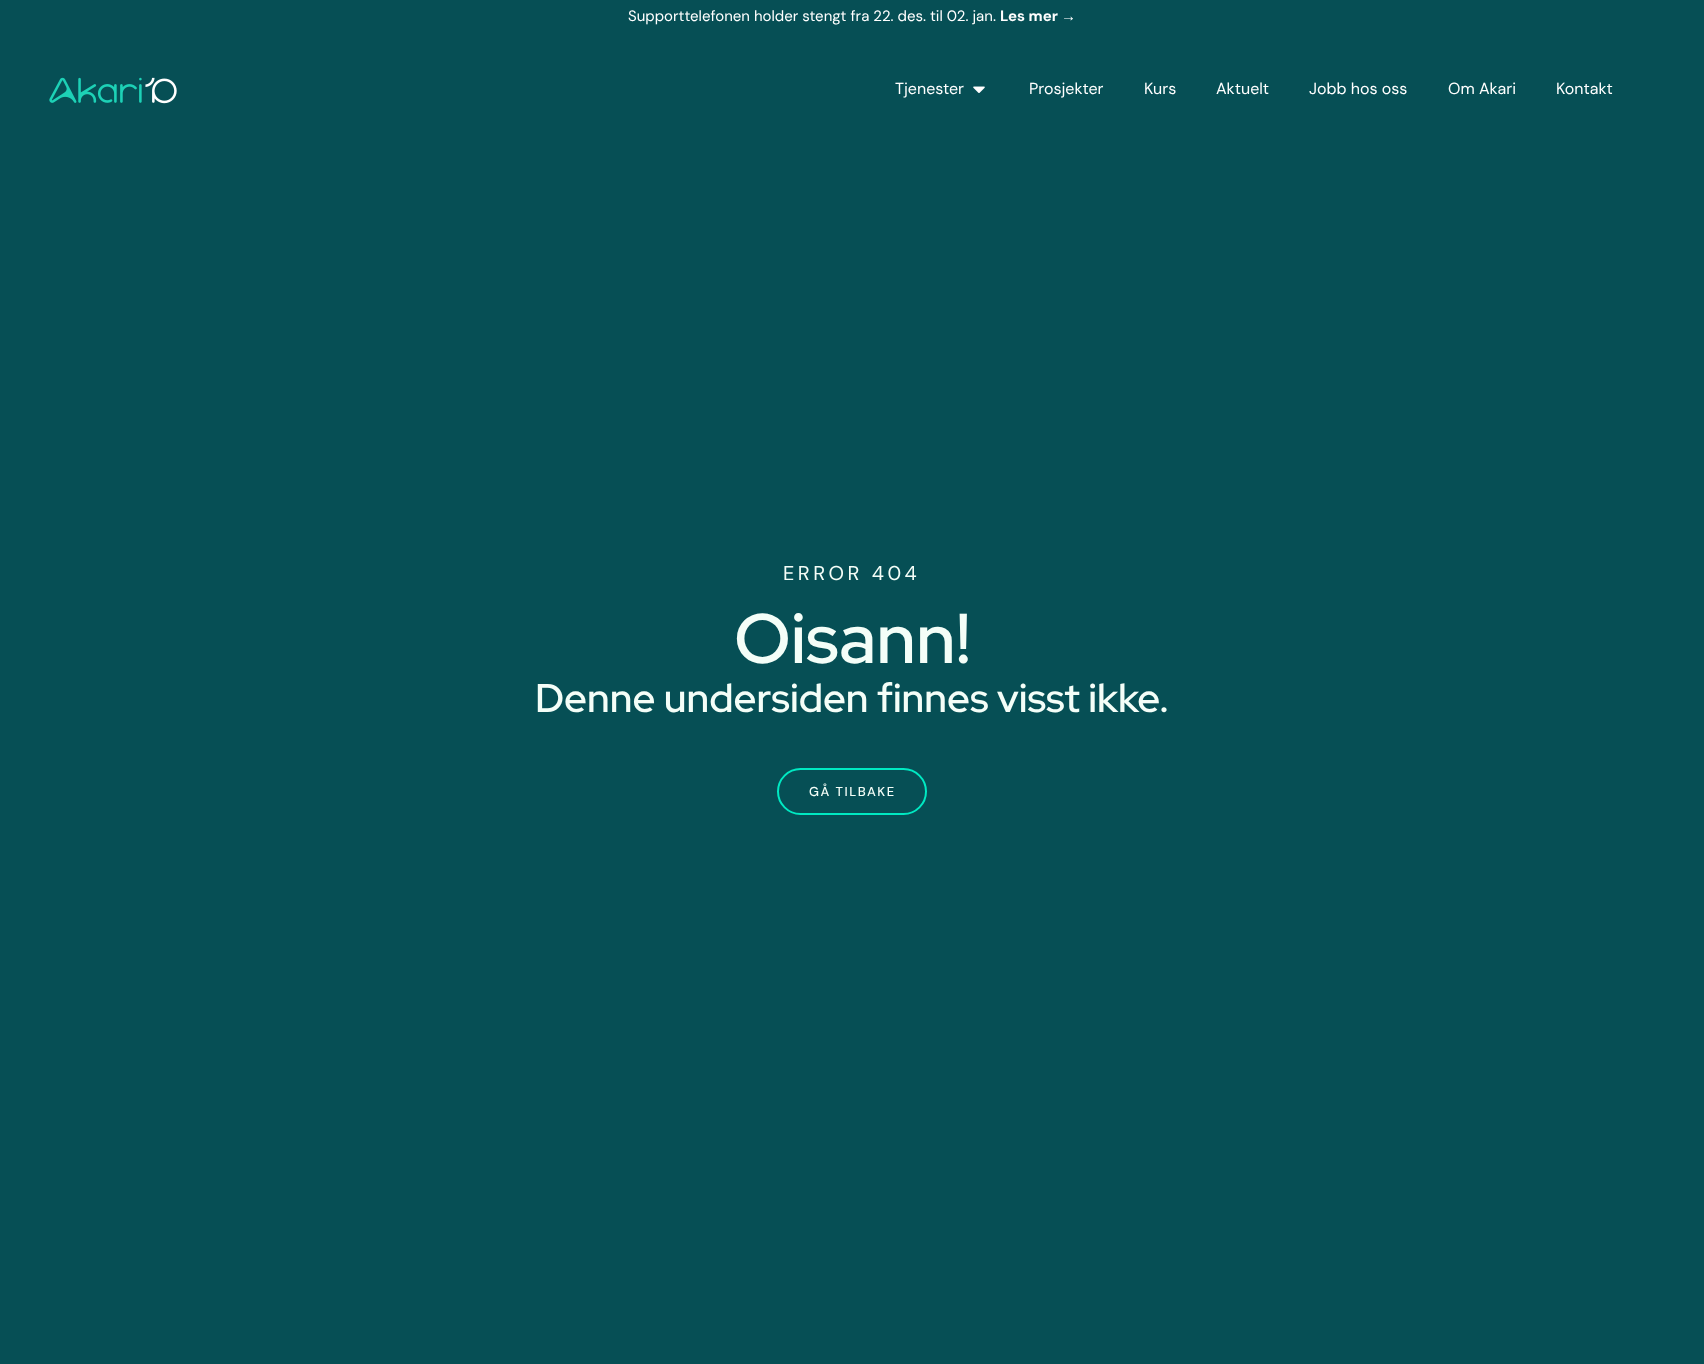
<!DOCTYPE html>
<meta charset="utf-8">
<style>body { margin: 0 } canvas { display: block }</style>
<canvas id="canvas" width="1704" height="1364"></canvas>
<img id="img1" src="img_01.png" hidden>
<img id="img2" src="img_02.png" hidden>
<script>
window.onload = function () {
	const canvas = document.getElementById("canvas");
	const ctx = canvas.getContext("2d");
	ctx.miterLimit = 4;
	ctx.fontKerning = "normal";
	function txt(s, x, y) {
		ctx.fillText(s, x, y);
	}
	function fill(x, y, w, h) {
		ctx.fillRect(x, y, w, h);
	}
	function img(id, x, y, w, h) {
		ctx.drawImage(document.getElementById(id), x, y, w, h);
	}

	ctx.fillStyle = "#064F55";
	fill(0, 0, 1704, 1364);
	img("img1", 49, 77, 128, 27);
	img("img2", 973, 86, 12, 7);
	ctx.beginPath();
	ctx.roundRect(778, 769, 148, 45, 22.5);
	ctx.strokeStyle = "#00E9C2";
	ctx.lineWidth = 2;
	ctx.stroke();
	ctx.font = "15px DM Sans";
	ctx.fillStyle = "#FFFFFF";
	txt("Supporttelefonen holder stengt fra 22. des. til 02. jan.", 628, 21);
	ctx.font = "bold 15px DM Sans";
	txt("Les mer", 1000, 21);
	ctx.font = "bold 15px Liberation Sans";
	txt("→", 1061, 21);
	ctx.font = "16px DM Sans";
	txt("Tjenester", 895, 94);
	txt("Prosjekter", 1029, 94);
	txt("Kurs", 1144, 94);
	txt("Aktuelt", 1216, 94);
	txt("Jobb hos oss", 1309, 94);
	txt("Om Akari", 1448, 94);
	txt("Kontakt", 1556, 94);
	ctx.letterSpacing = "3.5px";
	ctx.font = "20px DM Sans";
	ctx.fillStyle = "#F4FEF8";
	txt("ERROR 404", 783, 580);
	ctx.letterSpacing = "0px";
	ctx.font = "600 70px Red Hat Display";
	txt("Oisann!", 734, 663);
	ctx.font = "600 40px Red Hat Display";
	txt("Denne undersiden finnes visst ikke.", 535, 712);
	ctx.letterSpacing = "1.5px";
	ctx.font = "500 13px DM Sans";
	txt("GÅ TILBAKE", 809, 796);
};
</script>
